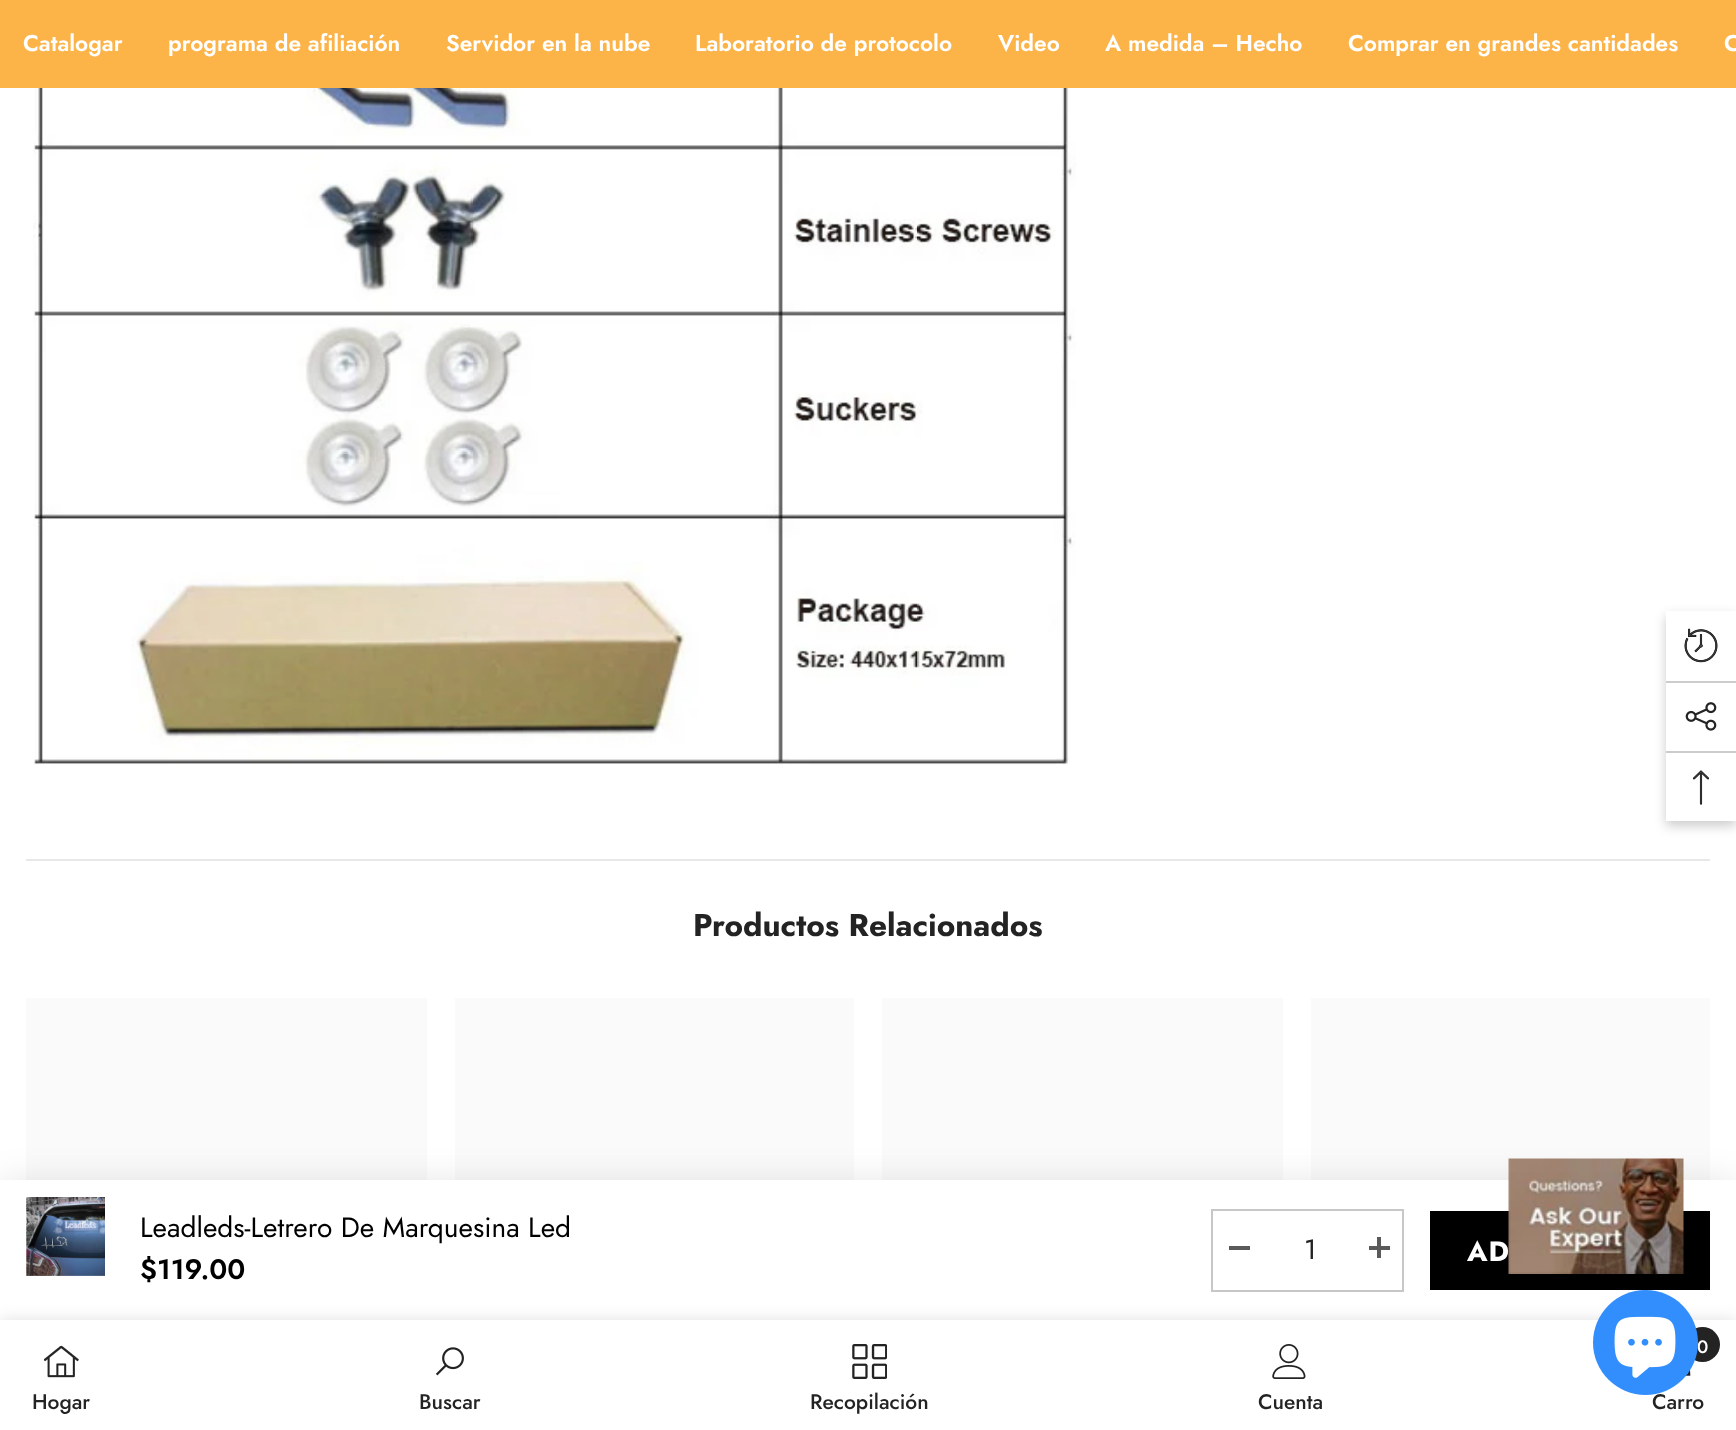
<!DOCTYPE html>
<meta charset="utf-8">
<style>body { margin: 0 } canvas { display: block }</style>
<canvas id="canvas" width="1736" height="1430"></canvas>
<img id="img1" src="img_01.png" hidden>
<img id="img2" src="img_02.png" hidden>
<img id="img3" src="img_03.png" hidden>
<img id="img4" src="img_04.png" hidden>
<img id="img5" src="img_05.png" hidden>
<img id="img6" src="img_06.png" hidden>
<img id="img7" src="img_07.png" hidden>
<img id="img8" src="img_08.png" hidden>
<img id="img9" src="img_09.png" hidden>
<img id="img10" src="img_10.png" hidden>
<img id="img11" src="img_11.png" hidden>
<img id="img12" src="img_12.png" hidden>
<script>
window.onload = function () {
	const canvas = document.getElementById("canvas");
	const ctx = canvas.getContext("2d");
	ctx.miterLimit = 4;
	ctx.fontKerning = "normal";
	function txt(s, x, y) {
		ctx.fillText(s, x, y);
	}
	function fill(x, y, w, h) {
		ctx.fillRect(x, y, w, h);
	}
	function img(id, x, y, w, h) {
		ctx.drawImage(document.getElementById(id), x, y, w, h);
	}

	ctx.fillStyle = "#FFFFFF";
	fill(0, 0, 1736, 1430);
	ctx.fillStyle = "#FCB348";
	fill(0, 0, 1736, 88);
	ctx.fillStyle = "#E8E8E8";
	fill(26, 859, 1684, 2);
	ctx.fillStyle = "#FAFAFA";
	fill(26, 998, 401, 182);
	fill(455, 998, 399, 182);
	fill(882, 998, 401, 182);
	fill(1311, 998, 399, 182);
	img("img1", 33, 88, 1043, 677);
	ctx.fillStyle = "rgba(0, 0, 0, 0.1)";
	ctx.filter = "blur(17.5px)";
	ctx.beginPath();
	ctx.rect(0, 1181, 1736, 140);
	ctx.fill();
	ctx.filter = "none";
	ctx.fillStyle = "#FFFFFF";
	fill(0, 1180, 1736, 140);
	img("img2", 26, 1197, 79, 79);
	ctx.strokeStyle = "#C7C7C7";
	ctx.lineWidth = 2;
	ctx.strokeRect(1212, 1210, 191, 81);
	ctx.fillStyle = "#5A5A5A";
	fill(1229, 1246, 21, 4);
	fill(1369, 1246, 21, 4);
	fill(1377, 1237, 4, 21);
	ctx.fillStyle = "#000000";
	fill(1430, 1211, 280, 79);
	ctx.fillStyle = "rgba(0, 0, 0, 0.12)";
	ctx.filter = "blur(8px)";
	ctx.beginPath();
	ctx.rect(0, 1320, 1736, 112);
	ctx.fill();
	ctx.filter = "none";
	ctx.fillStyle = "#FFFFFF";
	fill(0, 1320, 1736, 110);
	img("img3", 44, 1345, 35, 33);
	img("img4", 435, 1347, 29, 29);
	img("img5", 852, 1344, 35, 35);
	img("img6", 1272, 1344, 34, 35);
	ctx.fillStyle = "#232323";
	ctx.beginPath();
	ctx.arc(1702.5, 1344.5, 17.5, 0, Math.PI * 2);
	ctx.fill();
	img("img7", 1686, 1370, 5, 6);
	ctx.fillStyle = "rgba(0, 0, 0, 0.2)";
	ctx.filter = "blur(6px)";
	ctx.beginPath();
	ctx.rect(1666, 616, 70, 210);
	ctx.fill();
	ctx.filter = "none";
	ctx.fillStyle = "#FFFFFF";
	fill(1666, 611, 70, 210);
	img("img8", 1684, 628, 34, 35);
	ctx.fillStyle = "#CCCCCC";
	fill(1666, 681, 70, 2);
	img("img9", 1685, 702, 32, 29);
	fill(1666, 751, 70, 2);
	img("img10", 1693, 770, 16, 35);
	ctx.font = "600 22.75px Jost";
	ctx.fillStyle = "#FFFFFF";
	txt("Catalogar", 23, 51);
	txt("programa de afiliación", 168, 51);
	txt("Servidor en la nube", 446, 51);
	txt("Laboratorio de protocolo", 695, 51);
	txt("Video", 998, 51);
	txt("A medida – Hecho", 1105, 51);
	txt("Comprar en grandes cantidades", 1348, 51);
	txt("C", 1724, 51);
	ctx.font = "bold 31.5px Jost";
	ctx.fillStyle = "#232323";
	txt("Productos Relacionados", 693, 936);
	ctx.font = "28px Jost";
	ctx.fillStyle = "#000000";
	txt("Leadleds-Letrero De Marquesina Led", 140, 1237);
	ctx.font = "600 28px Jost";
	txt("$119.00", 140, 1279);
	ctx.font = "28px Jost";
	ctx.fillStyle = "#232323";
	txt("1", 1304, 1259);
	ctx.letterSpacing = "1px";
	ctx.font = "bold 28px Jost";
	ctx.fillStyle = "#FFFFFF";
	txt("AD", 1467, 1261);
	ctx.letterSpacing = "0px";
	ctx.font = "500 21px Jost";
	ctx.fillStyle = "#232323";
	txt("Hogar", 32, 1409);
	txt("Buscar", 419, 1409);
	txt("Recopilación", 810, 1409);
	txt("Cuenta", 1258, 1409);
	ctx.font = "500 18px Jost";
	ctx.fillStyle = "#FFFFFF";
	txt("0", 1697, 1353);
	ctx.font = "500 21px Jost";
	ctx.fillStyle = "#232323";
	txt("Carro", 1652, 1409);
	img("img11", 1508, 1158, 176, 116);
	ctx.fillStyle = "#338EFD";
	ctx.beginPath();
	ctx.arc(1645.5, 1342.5, 52.5, 0, Math.PI * 2);
	ctx.fill();
	img("img12", 1614, 1316, 62, 62);
};
</script>
